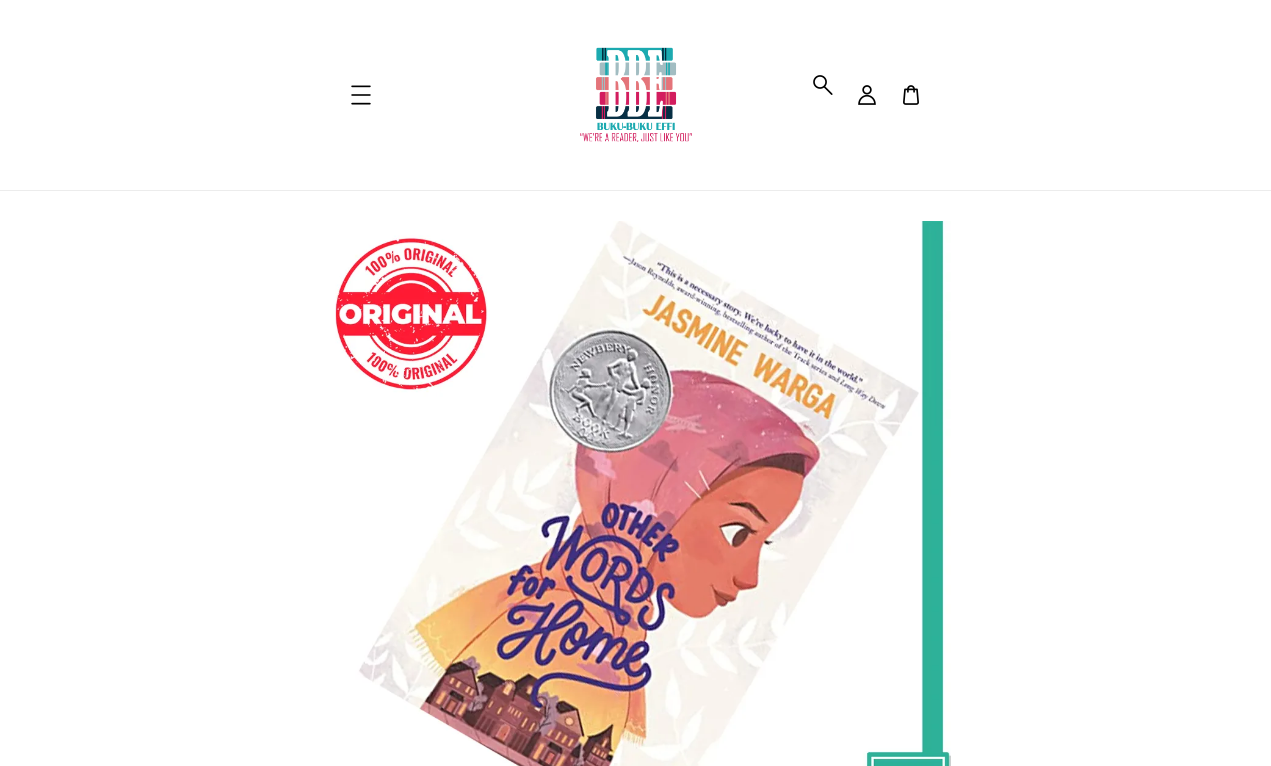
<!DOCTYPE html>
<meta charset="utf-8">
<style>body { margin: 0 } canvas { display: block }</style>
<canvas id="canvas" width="1271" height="766"></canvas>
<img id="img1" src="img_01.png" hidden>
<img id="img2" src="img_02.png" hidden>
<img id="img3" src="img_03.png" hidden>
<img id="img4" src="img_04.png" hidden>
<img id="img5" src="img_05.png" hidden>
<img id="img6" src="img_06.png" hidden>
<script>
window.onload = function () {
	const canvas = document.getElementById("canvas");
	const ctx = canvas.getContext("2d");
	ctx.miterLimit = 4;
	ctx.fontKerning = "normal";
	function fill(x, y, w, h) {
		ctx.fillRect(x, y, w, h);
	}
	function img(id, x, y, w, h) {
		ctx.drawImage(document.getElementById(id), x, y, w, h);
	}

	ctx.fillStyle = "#FFFFFF";
	fill(0, 0, 1271, 766);
	ctx.fillStyle = "#ECECEC";
	fill(0, 190, 1271, 1);
	img("img1", 351, 85, 20, 20);
	img("img2", 580, 47, 112, 95);
	img("img3", 813, 75, 20, 20);
	img("img4", 858, 85, 18, 20);
	img("img5", 903, 85, 16, 20);
	img("img6", 335, 221, 616, 545);
};
</script>
